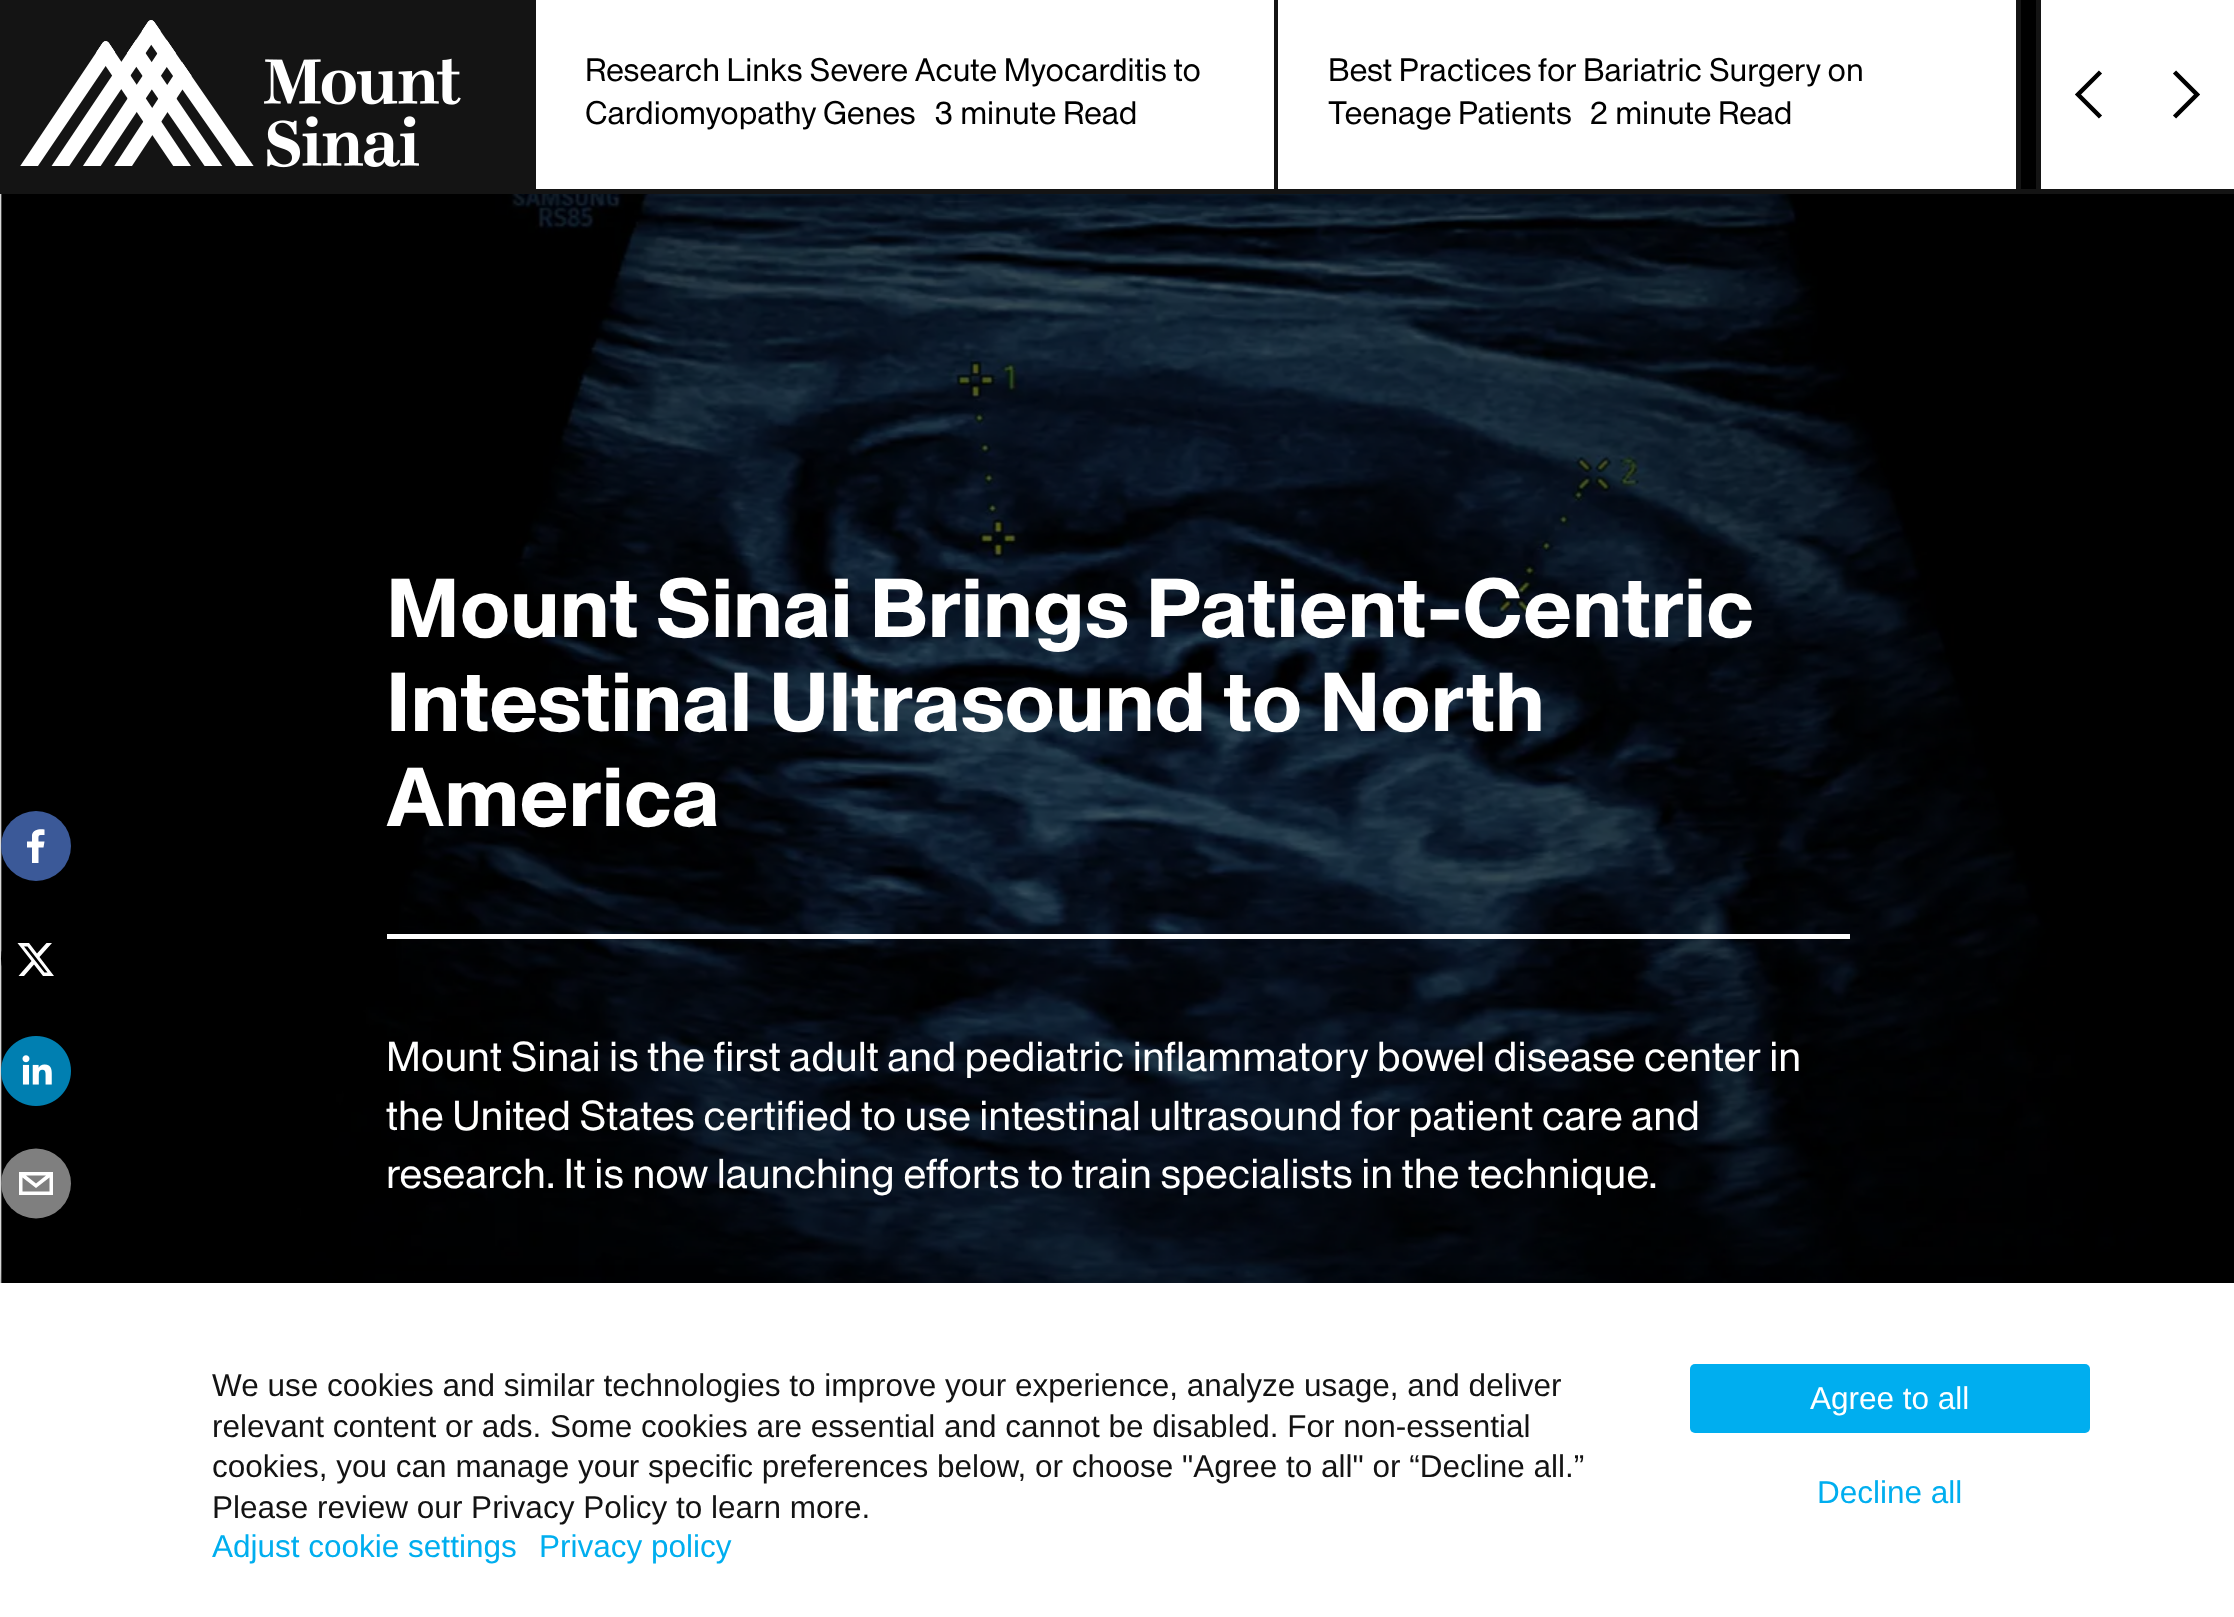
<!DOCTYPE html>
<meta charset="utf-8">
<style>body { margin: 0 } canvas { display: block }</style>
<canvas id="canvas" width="2234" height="1617"></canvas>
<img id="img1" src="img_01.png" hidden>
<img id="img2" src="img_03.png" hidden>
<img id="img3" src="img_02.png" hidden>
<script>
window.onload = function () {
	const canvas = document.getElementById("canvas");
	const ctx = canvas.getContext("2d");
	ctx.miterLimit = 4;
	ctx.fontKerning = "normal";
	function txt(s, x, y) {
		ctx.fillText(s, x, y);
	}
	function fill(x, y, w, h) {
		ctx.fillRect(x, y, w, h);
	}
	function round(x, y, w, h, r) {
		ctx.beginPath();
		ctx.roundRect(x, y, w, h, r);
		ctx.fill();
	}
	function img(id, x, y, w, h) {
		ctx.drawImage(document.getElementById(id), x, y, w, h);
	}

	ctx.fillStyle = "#FFFFFF";
	fill(0, 0, 2234, 1617);
	ctx.fillStyle = "#141414";
	fill(0, 0, 536, 189);
	img("img1", 20, 20, 441, 148);
	fill(1274, 0, 4, 189);
	fill(2016, 0, 5, 189);
	ctx.fillStyle = "#000000";
	fill(2021, 0, 15, 189);
	ctx.fillStyle = "#141414";
	fill(2036, 0, 5, 189);
	ctx.beginPath();
	ctx.moveTo(2100.5, 117);
	ctx.lineTo(2078, 94.5);
	ctx.lineTo(2100.5, 72);
	ctx.strokeStyle = "#000000";
	ctx.lineWidth = 4.5;
	ctx.stroke();
	ctx.beginPath();
	ctx.moveTo(2174.5, 72);
	ctx.lineTo(2197, 94.5);
	ctx.lineTo(2174.5, 117);
	ctx.stroke();
	fill(0, 189, 2234, 5);
	img("img2", 0, 194, 2234, 1089);
	ctx.fillStyle = "#3B5998";
	ctx.beginPath();
	ctx.arc(36, 846, 35, 0, Math.PI * 2);
	ctx.fill();
	ctx.fillStyle = "#FFFFFF";
	ctx.beginPath();
	ctx.moveTo(38.5, 863);
	ctx.lineTo(38.5, 847.5);
	ctx.lineTo(43.5, 847.5);
	ctx.lineTo(44.5, 841.5);
	ctx.lineTo(38.5, 841.5);
	ctx.bezierCurveTo(38.5, 835, 37.5, 835, 44.5, 835);
	ctx.lineTo(44.5, 829.5);
	ctx.bezierCurveTo(39.5, 828.5, 33, 829.5, 32, 835);
	ctx.lineTo(32, 841.5);
	ctx.lineTo(27, 841.5);
	ctx.lineTo(27, 847.5);
	ctx.lineTo(32, 847.5);
	ctx.lineTo(32, 863);
	ctx.closePath();
	ctx.fill();
	ctx.fillStyle = "#000000";
	ctx.beginPath();
	ctx.arc(36, 958.5, 35, 0, Math.PI * 2);
	ctx.fill();
	ctx.fillStyle = "#FFFFFF";
	ctx.beginPath();
	ctx.moveTo(46.5, 943);
	ctx.lineTo(52, 943);
	ctx.lineTo(39.5, 957);
	ctx.lineTo(54, 976);
	ctx.lineTo(43, 976);
	ctx.lineTo(34, 964.5);
	ctx.lineTo(24, 976);
	ctx.lineTo(18.5, 976);
	ctx.lineTo(31.5, 961);
	ctx.lineTo(17.5, 943);
	ctx.lineTo(29, 943);
	ctx.lineTo(37, 953.5);
	ctx.closePath();
	ctx.moveTo(44.5, 972.5);
	ctx.lineTo(47.5, 972.5);
	ctx.lineTo(27.5, 946.5);
	ctx.lineTo(24, 946.5);
	ctx.closePath();
	ctx.fill();
	img("img3", 1, 1036, 70, 70);
	ctx.fillStyle = "#7F7F7F";
	ctx.beginPath();
	ctx.arc(36, 1183.5, 35, 0, Math.PI * 2);
	ctx.fill();
	ctx.fillStyle = "#FFFFFF";
	ctx.beginPath();
	ctx.moveTo(19, 1172);
	ctx.lineTo(19, 1195);
	ctx.lineTo(53, 1195);
	ctx.lineTo(53, 1172);
	ctx.closePath();
	ctx.moveTo(46, 1175.5);
	ctx.lineTo(36, 1183.5);
	ctx.lineTo(26, 1175.5);
	ctx.closePath();
	ctx.moveTo(22.5, 1191.5);
	ctx.lineTo(22.5, 1177.5);
	ctx.lineTo(36, 1188);
	ctx.lineTo(49.5, 1177.5);
	ctx.lineTo(49.5, 1191.5);
	ctx.closePath();
	ctx.fill();
	fill(387, 934, 1463, 5);
	ctx.fillStyle = "rgba(0, 0, 0, 0.14)";
	ctx.filter = "blur(5.5px)";
	ctx.beginPath();
	ctx.rect(-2, 1276, 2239, 340);
	ctx.fill();
	ctx.filter = "none";
	ctx.fillStyle = "#FFFFFF";
	fill(0, 1283, 2234, 334);
	ctx.fillStyle = "#00AEEF";
	round(1690, 1364, 400, 69, 5);
	ctx.font = "31.5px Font";
	ctx.fillStyle = "#000000";
	txt("Research Links Severe Acute Myocarditis to", 585, 81);
	txt("Cardiomyopathy Genes", 585, 124);
	txt("3 minute Read", 934, 124);
	txt("Best Practices for Bariatric Surgery on", 1328, 81);
	txt("Teenage Patients", 1328, 124);
	txt("2 minute Read", 1589, 124);
	ctx.font = "bold 81px Font";
	ctx.fillStyle = "#FFFFFF";
	txt("Mount Sinai Brings Patient-Centric", 386, 637);
	txt("Intestinal Ultrasound to North", 386, 731);
	txt("America", 386, 826);
	ctx.font = "40.5px Font";
	txt("Mount Sinai is the first adult and pediatric inflammatory bowel disease center in", 386, 1071);
	txt("the United States certified to use intestinal ultrasound for patient care and", 386, 1130);
	txt("research. It is now launching efforts to train specialists in the technique.", 386, 1188);
	ctx.font = "31.5px Liberation Sans";
	ctx.fillStyle = "#131313";
	txt("We use cookies and similar technologies to improve your experience, analyze usage, and deliver", 212, 1396);
	txt("relevant content or ads. Some cookies are essential and cannot be disabled. For non-essential", 212, 1437);
	txt("cookies, you can manage your specific preferences below, or choose \"Agree to all\" or “Decline all.”", 212, 1477);
	txt("Please review our Privacy Policy to learn more.", 212, 1518);
	ctx.fillStyle = "#FFFFFF";
	txt("Agree to all", 1810, 1409);
	ctx.fillStyle = "#00AEEF";
	txt("Decline all", 1817, 1503);
	txt("Adjust cookie settings", 212, 1557);
	txt("Privacy policy", 539, 1557);
};
</script>
